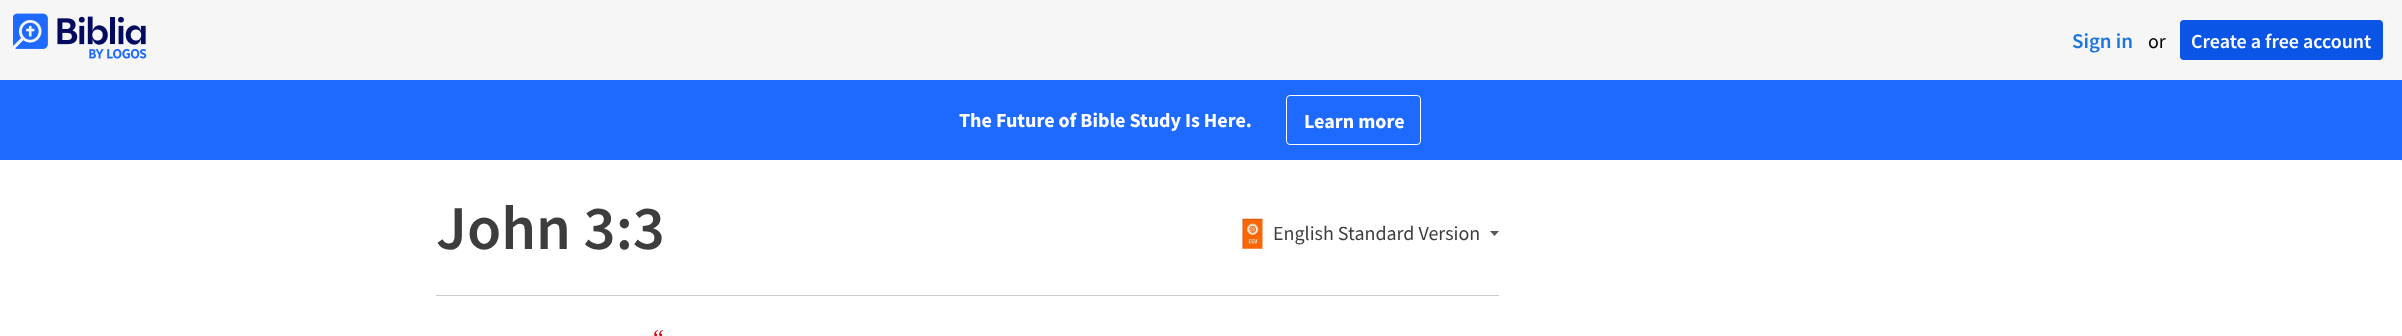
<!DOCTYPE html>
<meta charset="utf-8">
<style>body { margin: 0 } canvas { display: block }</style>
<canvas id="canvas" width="2402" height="336"></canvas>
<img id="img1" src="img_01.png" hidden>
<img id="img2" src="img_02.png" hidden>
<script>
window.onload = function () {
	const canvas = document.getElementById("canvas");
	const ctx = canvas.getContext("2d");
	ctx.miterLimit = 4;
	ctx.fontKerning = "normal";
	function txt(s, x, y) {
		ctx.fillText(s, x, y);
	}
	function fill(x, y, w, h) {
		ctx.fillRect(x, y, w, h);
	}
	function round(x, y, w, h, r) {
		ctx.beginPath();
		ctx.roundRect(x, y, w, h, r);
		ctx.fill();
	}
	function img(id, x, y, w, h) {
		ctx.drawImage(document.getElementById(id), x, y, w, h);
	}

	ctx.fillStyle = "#F6F6F6";
	fill(0, 0, 2402, 336);
	img("img1", 13, 13, 134, 46);
	ctx.fillStyle = "#0A55E6";
	round(2180, 20, 203, 40, 4);
	ctx.fillStyle = "#1E6AFE";
	fill(0, 80, 2402, 80);
	ctx.beginPath();
	ctx.roundRect(1286.5, 95.5, 134, 49, 3.5);
	ctx.strokeStyle = "#FFFFFF";
	ctx.stroke();
	ctx.fillStyle = "#FFFFFF";
	round(-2, 160, 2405, 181, 5);
	ctx.fillStyle = "#CCCCCC";
	fill(436, 295, 1063, 1);
	img("img2", 1242, 218, 21, 31);
	ctx.fillStyle = "#585858";
	ctx.beginPath();
	ctx.moveTo(1494.5, 236);
	ctx.lineTo(1499, 231);
	ctx.lineTo(1490, 231);
	ctx.closePath();
	ctx.fill("evenodd");
	ctx.font = "600 21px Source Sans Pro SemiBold";
	ctx.fillStyle = "#1977DE";
	txt("Sign in", 2072, 48);
	ctx.font = "20px Source Sans Pro";
	ctx.fillStyle = "#000000";
	txt("or", 2148, 48);
	ctx.font = "600 20px Source Sans Pro SemiBold";
	ctx.fillStyle = "#FFFFFF";
	txt("Create a free account", 2191, 48);
	ctx.font = "bold 20px Source Sans Pro";
	txt("The Future of Bible Study Is Here.", 959, 127);
	txt("Learn more", 1304, 128);
	ctx.font = "600 62.5px Source Sans Pro SemiBold";
	ctx.fillStyle = "#3D3D3D";
	txt("John 3:3", 436, 249);
	ctx.font = "20px Source Sans Pro";
	txt("English Standard Version", 1273, 240);
	ctx.font = "24px Liberation Serif";
	ctx.fillStyle = "#DD0000";
	txt("“", 653, 346);
};
</script>
